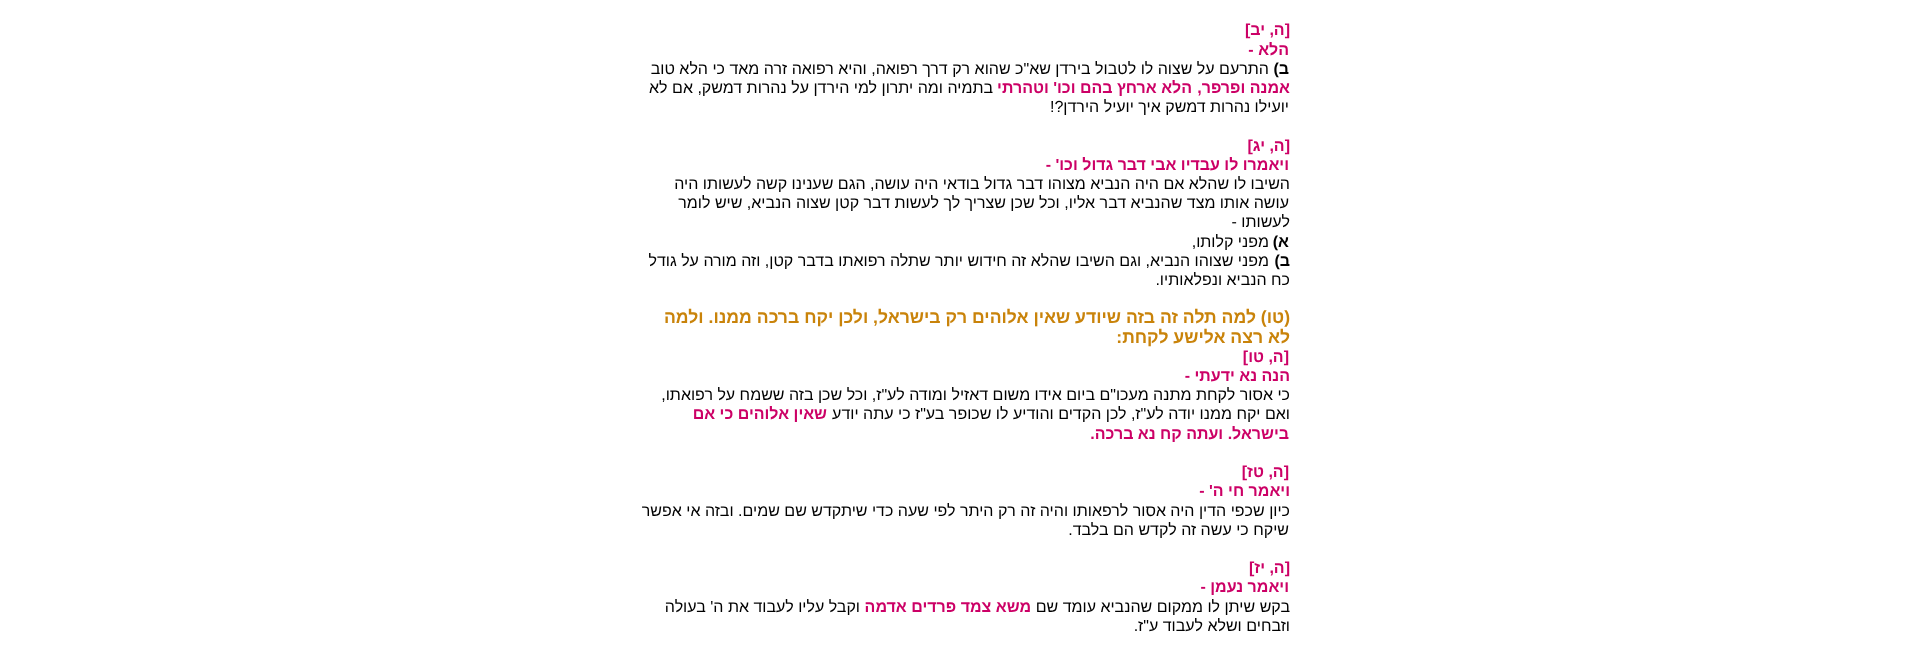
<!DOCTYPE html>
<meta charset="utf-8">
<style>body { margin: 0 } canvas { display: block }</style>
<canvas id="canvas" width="1929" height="657"></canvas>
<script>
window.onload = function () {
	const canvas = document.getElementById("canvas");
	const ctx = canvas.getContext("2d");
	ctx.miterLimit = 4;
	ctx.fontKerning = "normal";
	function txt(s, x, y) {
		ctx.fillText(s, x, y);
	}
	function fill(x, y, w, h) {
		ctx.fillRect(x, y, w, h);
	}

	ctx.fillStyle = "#FFFFFF";
	fill(0, 0, 1929, 657);
	ctx.direction = "rtl";
	ctx.font = "bold 16px Liberation Sans";
	ctx.fillStyle = "#CC0066";
	txt("[ה, יב]", 1290, 35);
	txt("הלא -", 1289, 55);
	ctx.fillStyle = "#000000";
	txt("ב)", 1289, 74);
	ctx.font = "16px Liberation Sans";
	txt("התרעם על שצוה לו לטבול בירדן שא\"כ שהוא רק דרך רפואה, והיא רפואה זרה מאד כי הלא טוב", 1269, 74);
	ctx.font = "bold 16px Liberation Sans";
	ctx.fillStyle = "#CC0066";
	txt("אמנה ופרפר,", 1290, 93);
	txt("הלא ארחץ בהם וכו' וטהרתי", 1192, 93);
	ctx.font = "16px Liberation Sans";
	ctx.fillStyle = "#000000";
	txt("בתמיה ומה יתרון למי הירדן על נהרות דמשק, אם לא", 993, 93);
	txt("יועילו נהרות דמשק איך יועיל הירדן?!", 1289, 112);
	ctx.font = "bold 16px Liberation Sans";
	ctx.fillStyle = "#CC0066";
	txt("[ה, יג]", 1290, 151);
	txt("ויאמרו לו עבדיו אבי דבר גדול וכו' -", 1289, 170);
	ctx.font = "16px Liberation Sans";
	ctx.fillStyle = "#000000";
	txt("השיבו לו שהלא אם היה הנביא מצוהו דבר גדול בודאי היה עושה, הגם שענינו קשה לעשותו היה", 1290, 189);
	txt("עושה אותו מצד שהנביא דבר אליו, וכל שכן שצריך לך לעשות דבר קטן שצוה הנביא, שיש לומר", 1289, 208);
	txt("לעשותו -", 1290, 227);
	ctx.font = "bold 16px Liberation Sans";
	txt("א)", 1289, 247);
	ctx.font = "16px Liberation Sans";
	txt("מפני קלותו,", 1269, 247);
	ctx.font = "bold 16px Liberation Sans";
	txt("ב)", 1290, 266);
	ctx.font = "16px Liberation Sans";
	txt("מפני שצוהו הנביא, וגם השיבו שהלא זה חידוש יותר שתלה רפואתו בדבר קטן, וזה מורה על גודל", 1269, 266);
	txt("כח הנביא ונפלאותיו.", 1290, 285);
	ctx.font = "bold 17.6px Liberation Sans";
	ctx.fillStyle = "#C9830A";
	txt("(טו) למה תלה זה בזה שיודע שאין אלוהים רק בישראל, ולכן יקח ברכה ממנו. ולמה", 1290, 323);
	txt("לא רצה אלישע לקחת:", 1290, 343);
	ctx.font = "bold 16px Liberation Sans";
	ctx.fillStyle = "#CC0066";
	txt("[ה, טו]", 1289, 362);
	txt("הנה נא ידעתי -", 1290, 381);
	ctx.font = "16px Liberation Sans";
	ctx.fillStyle = "#000000";
	txt("כי אסור לקחת מתנה מעכו\"ם ביום אידו משום דאזיל ומודה לע\"ז, וכל שכן בזה ששמח על רפואתו,", 1290, 400);
	txt("ואם יקח ממנו יודה לע\"ז, לכן הקדים והודיע לו שכופר בע\"ז כי עתה יודע", 1290, 419);
	ctx.font = "bold 16px Liberation Sans";
	ctx.fillStyle = "#CC0066";
	txt("שאין אלוהים כי אם", 827, 419);
	txt("בישראל. ועתה קח נא ברכה.", 1289, 439);
	txt("[ה, טז]", 1289, 477);
	txt("ויאמר חי ה' -", 1290, 496);
	ctx.font = "16px Liberation Sans";
	ctx.fillStyle = "#000000";
	txt("כיון שכפי הדין היה אסור לרפאותו והיה זה רק היתר לפי שעה כדי שיתקדש שם שמים. ובזה אי אפשר", 1290, 516);
	txt("שיקח כי עשה זה לקדש הם בלבד.", 1289, 535);
	ctx.font = "bold 16px Liberation Sans";
	ctx.fillStyle = "#CC0066";
	txt("[ה, יז]", 1290, 573);
	txt("ויאמר נעמן -", 1289, 592);
	ctx.font = "16px Liberation Sans";
	ctx.fillStyle = "#000000";
	txt("בקש שיתן לו ממקום שהנביא עומד שם", 1290, 612);
	ctx.font = "bold 16px Liberation Sans";
	ctx.fillStyle = "#CC0066";
	txt("משא צמד פרדים אדמה", 1031, 612);
	ctx.font = "16px Liberation Sans";
	ctx.fillStyle = "#000000";
	txt("וקבל עליו לעבוד את ה' בעולה", 860, 612);
	txt("וזבחים ושלא לעבוד ע\"ז.", 1290, 631);
};
</script>
